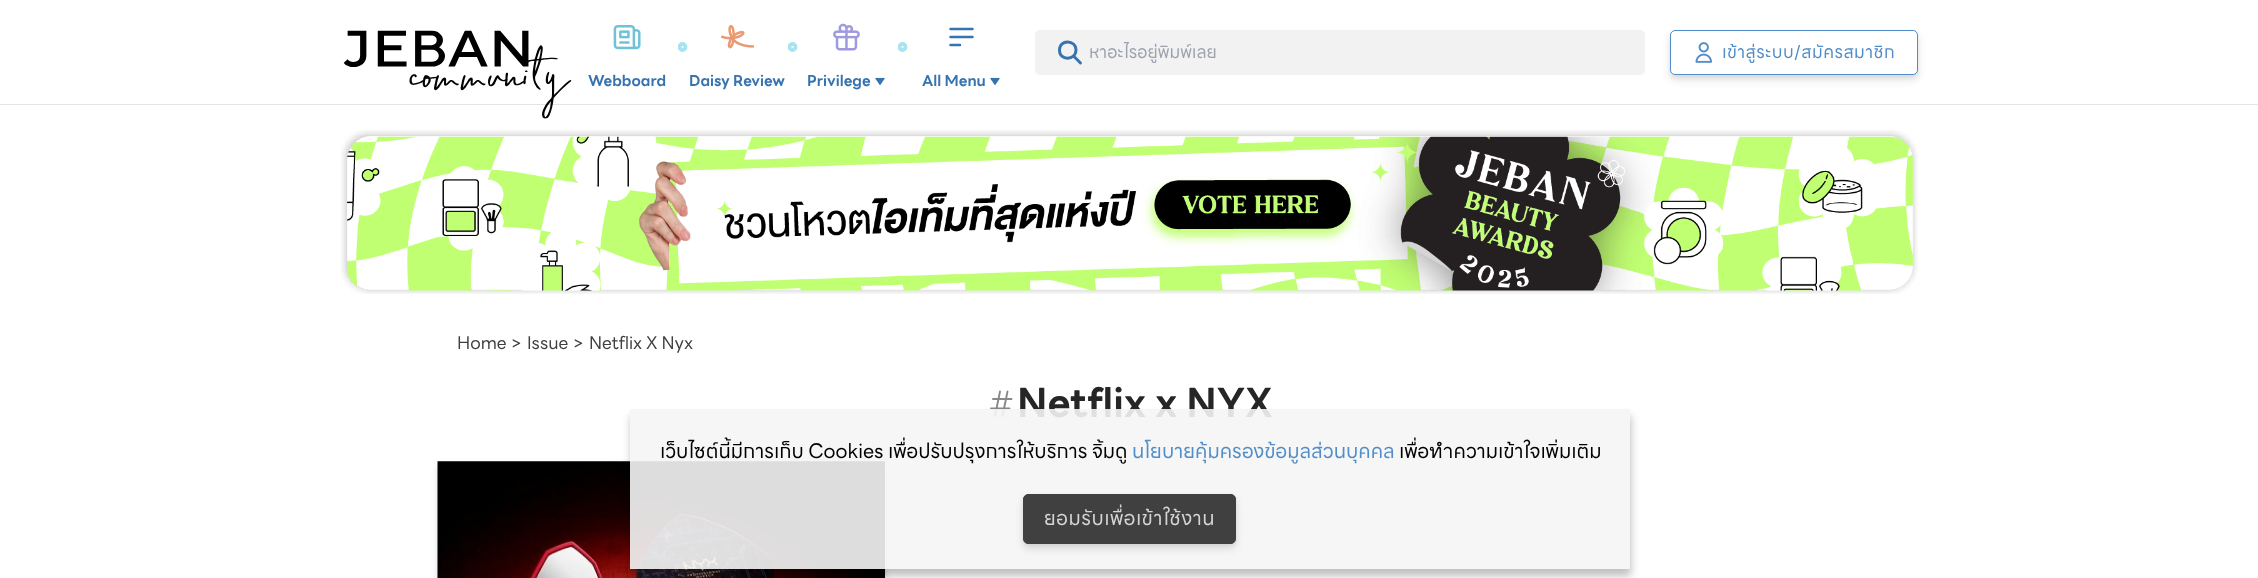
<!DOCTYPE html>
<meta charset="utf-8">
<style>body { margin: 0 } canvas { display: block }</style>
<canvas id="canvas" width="2258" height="578"></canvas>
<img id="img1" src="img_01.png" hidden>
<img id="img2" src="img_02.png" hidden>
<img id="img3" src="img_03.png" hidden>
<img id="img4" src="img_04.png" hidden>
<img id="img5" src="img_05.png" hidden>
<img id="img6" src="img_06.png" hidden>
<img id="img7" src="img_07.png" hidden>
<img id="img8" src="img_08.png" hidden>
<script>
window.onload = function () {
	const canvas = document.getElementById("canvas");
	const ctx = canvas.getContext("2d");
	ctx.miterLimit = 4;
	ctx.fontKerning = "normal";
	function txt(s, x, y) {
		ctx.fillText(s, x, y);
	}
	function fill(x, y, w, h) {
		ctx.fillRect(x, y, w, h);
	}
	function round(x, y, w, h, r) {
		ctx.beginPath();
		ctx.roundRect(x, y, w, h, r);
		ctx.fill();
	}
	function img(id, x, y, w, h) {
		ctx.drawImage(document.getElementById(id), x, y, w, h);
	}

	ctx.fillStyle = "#FFFFFF";
	fill(0, 0, 2258, 578);
	ctx.fillStyle = "#E1E5EA";
	fill(0, 104, 2258, 1);
	img("img1", 343, 30, 229, 89);
	ctx.fillStyle = "#F2F2F2";
	round(1035, 30, 610, 45, 5);
	ctx.beginPath();
	ctx.moveTo(1080.5, 63);
	ctx.lineTo(1073.5, 56);
	ctx.moveTo(1076, 50);
	ctx.bezierCurveTo(1076, 61, 1059, 61, 1059.5, 50);
	ctx.bezierCurveTo(1059.5, 39, 1076, 39.5, 1076, 50);
	ctx.closePath();
	ctx.strokeStyle = "#3773AE";
	ctx.lineWidth = 2.9;
	ctx.lineCap = "round";
	ctx.lineJoin = "round";
	ctx.stroke();
	ctx.fillStyle = "rgba(0, 0, 0, 0.06)";
	ctx.filter = "blur(2.5px)";
	ctx.beginPath();
	ctx.roundRect(1670, 33, 248, 45, 5);
	ctx.fill();
	ctx.filter = "none";
	ctx.fillStyle = "rgba(0, 0, 0, 0.1)";
	ctx.filter = "blur(4px)";
	ctx.beginPath();
	ctx.roundRect(1670, 35, 248, 45, 5);
	ctx.fill();
	ctx.filter = "none";
	ctx.fillStyle = "#FFFFFF";
	ctx.beginPath();
	ctx.roundRect(1670.5, 30.5, 247, 44, 4.5);
	ctx.fill();
	ctx.strokeStyle = "#518DC8";
	ctx.lineWidth = 1;
	ctx.lineJoin = "miter";
	ctx.stroke();
	img("img2", 1695, 42, 17, 21);
	img("img3", 613, 25, 28, 25);
	ctx.save();
	ctx.beginPath();
	ctx.rect(678, 41, 10, 12);
	ctx.clip();
	ctx.beginPath();
	ctx.arc(682.5, 47, 3, 0, Math.PI * 2);
	ctx.strokeStyle = "#A6E4F2";
	ctx.lineWidth = 3.8;
	ctx.stroke();
	ctx.restore();
	img("img4", 720, 25, 35, 24);
	ctx.save();
	ctx.beginPath();
	ctx.rect(788, 41, 10, 12);
	ctx.clip();
	ctx.beginPath();
	ctx.arc(792.5, 47, 3, 0, Math.PI * 2);
	ctx.strokeStyle = "#A6E4F2";
	ctx.lineWidth = 3.8;
	ctx.stroke();
	ctx.restore();
	ctx.save();
	ctx.beginPath();
	ctx.rect(898, 41, 10, 12);
	ctx.clip();
	ctx.beginPath();
	ctx.arc(902.5, 47, 3, 0, Math.PI * 2);
	ctx.strokeStyle = "#A6E4F2";
	ctx.lineWidth = 3.8;
	ctx.stroke();
	ctx.restore();
	img("img5", 833, 23, 27, 28);
	img("img6", 875, 77, 10, 8);
	ctx.beginPath();
	ctx.moveTo(950.5, 45);
	ctx.lineTo(960, 45);
	ctx.moveTo(950.5, 29);
	ctx.lineTo(972.5, 29);
	ctx.closePath();
	ctx.moveTo(950.5, 37);
	ctx.lineTo(972.5, 37);
	ctx.closePath();
	ctx.strokeStyle = "#3773AE";
	ctx.lineWidth = 2.5;
	ctx.lineJoin = "round";
	ctx.stroke();
	img("img6", 990, 77, 10, 8);
	img("img7", 341, 130, 1577, 164);
	ctx.beginPath();
	ctx.moveTo(993, 399);
	ctx.lineTo(1011.5, 399);
	ctx.moveTo(991, 408.5);
	ctx.lineTo(1009.5, 408.5);
	ctx.moveTo(1007.5, 391.5);
	ctx.lineTo(1002.5, 416);
	ctx.moveTo(1000, 391.5);
	ctx.lineTo(995, 416);
	ctx.strokeStyle = "#888888";
	ctx.lineWidth = 1.9;
	ctx.stroke();
	ctx.fillStyle = "rgba(0, 0, 0, 0.06)";
	ctx.filter = "blur(2.5px)";
	ctx.beginPath();
	ctx.roundRect(438, 464, 447, 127, 5);
	ctx.fill();
	ctx.filter = "none";
	ctx.fillStyle = "rgba(0, 0, 0, 0.1)";
	ctx.filter = "blur(4px)";
	ctx.beginPath();
	ctx.roundRect(438, 466, 447, 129, 5);
	ctx.fill();
	ctx.filter = "none";
	img("img8", 437, 461, 448, 117);
	ctx.save();
	ctx.beginPath();
	ctx.moveTo(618, 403);
	ctx.lineTo(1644, 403);
	ctx.lineTo(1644, 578);
	ctx.lineTo(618, 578);
	ctx.closePath();
	ctx.moveTo(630, 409);
	ctx.lineTo(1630, 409);
	ctx.lineTo(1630, 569);
	ctx.lineTo(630, 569);
	ctx.closePath();
	ctx.clip("evenodd");
	ctx.fillStyle = "rgba(0, 0, 0, 0.25)";
	ctx.filter = "blur(4px)";
	ctx.beginPath();
	ctx.rect(631, 416, 1000, 160);
	ctx.fill();
	ctx.filter = "none";
	ctx.restore();
	ctx.font = "17.5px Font";
	ctx.fillStyle = "#9CA3AF";
	txt("หาอะไรอยู่พิมพ์เลย", 1089, 58);
	ctx.letterSpacing = "0.4px";
	ctx.fillStyle = "#518DC8";
	txt("เข้าสู่ระบบ/สมัครสมาชิก", 1722, 58);
	ctx.letterSpacing = "0px";
	ctx.font = "bold 15px Font";
	ctx.fillStyle = "#3773AE";
	txt("Webboard", 588, 86);
	txt("Daisy Review", 689, 86);
	txt("Privilege", 807, 86);
	txt("All Menu", 922, 86);
	ctx.font = "17.5px Font";
	ctx.fillStyle = "#404040";
	txt("Home", 457, 349);
	txt(">", 511, 349);
	txt("Issue", 527, 349);
	txt(">", 573, 349);
	txt("Netflix X Nyx", 589, 349);
	ctx.font = "bold 40px Font";
	ctx.fillStyle = "#262626";
	txt("Netflix x NYX", 1017, 417);
	ctx.fillStyle = "rgba(245, 245, 245, 0.9)";
	fill(630, 409, 1000, 160);
	ctx.font = "20px Font";
	ctx.fillStyle = "#000000";
	txt("เว็บไซต์นี้มีการเก็บ Cookies เพื่อปรับปรุงการให้บริการ จิ้มดู", 660, 458);
	ctx.fillStyle = "#518DC8";
	txt("นโยบายคุ้มครองข้อมูลส่วนบุคคล", 1132, 458);
	ctx.fillStyle = "#000000";
	txt("เพื่อทำความเข้าใจเพิ่มเติม", 1399, 458);
	ctx.fillStyle = "rgba(0, 0, 0, 0.06)";
	ctx.filter = "blur(2.5px)";
	ctx.beginPath();
	ctx.roundRect(1023, 496, 213, 50, 5);
	ctx.fill();
	ctx.filter = "none";
	ctx.fillStyle = "rgba(0, 0, 0, 0.1)";
	ctx.filter = "blur(4px)";
	ctx.beginPath();
	ctx.roundRect(1023, 499, 213, 50, 5);
	ctx.fill();
	ctx.filter = "none";
	ctx.fillStyle = "#404040";
	ctx.beginPath();
	ctx.roundRect(1023.5, 494.5, 212, 49, 4.5);
	ctx.fill();
	ctx.strokeStyle = "#404040";
	ctx.lineWidth = 1;
	ctx.lineJoin = "miter";
	ctx.stroke();
	ctx.letterSpacing = "0.5px";
	ctx.fillStyle = "#D5D5D5";
	txt("ยอมรับเพื่อเข้าใช้งาน", 1044, 525);
};
</script>
